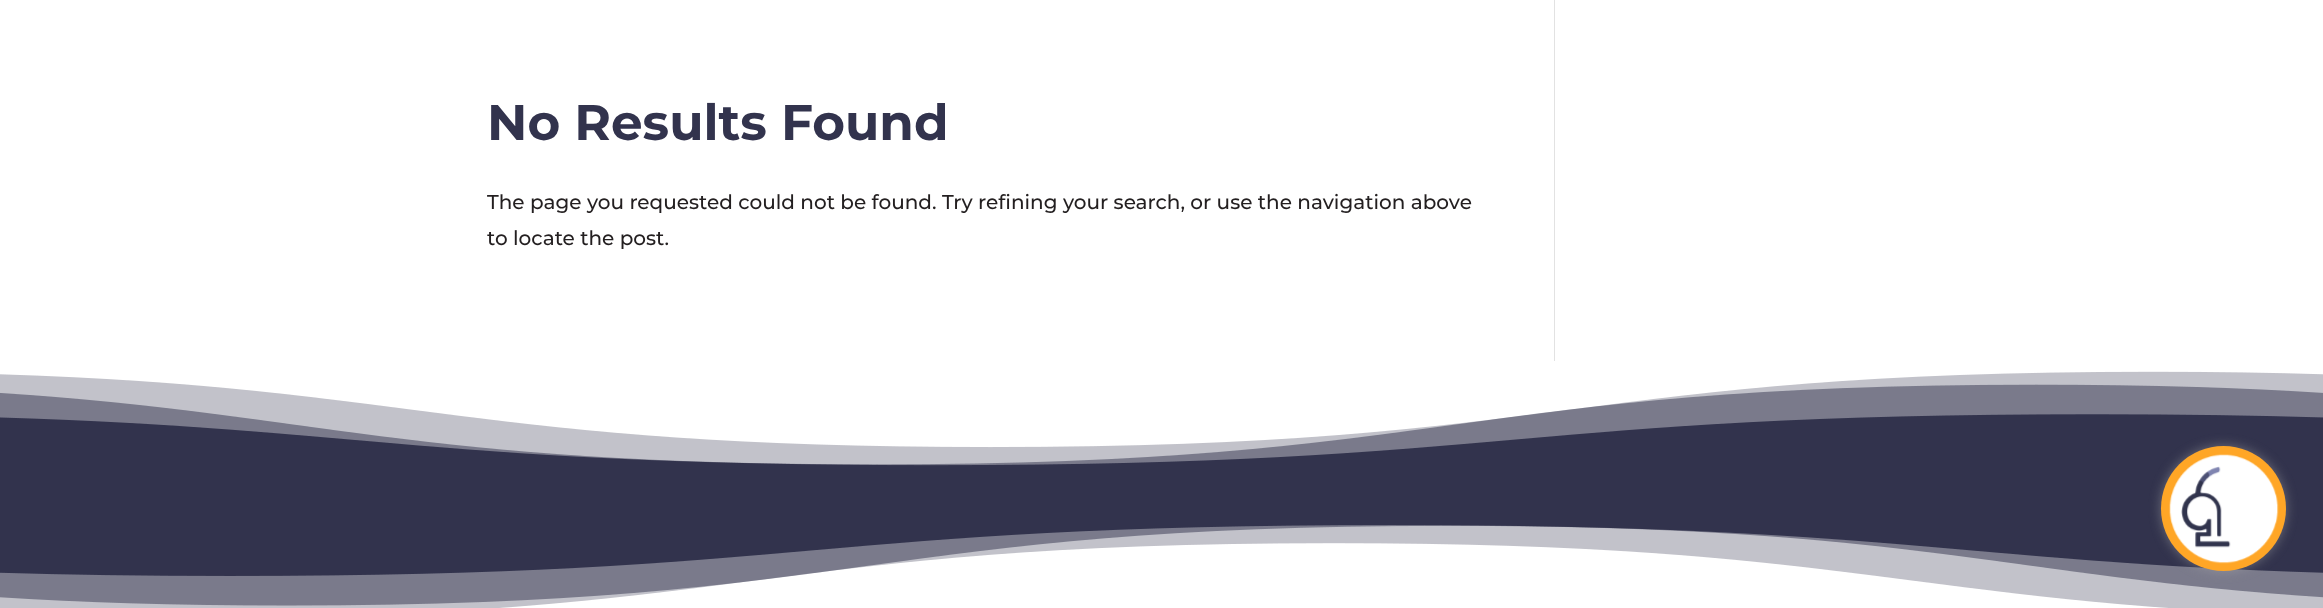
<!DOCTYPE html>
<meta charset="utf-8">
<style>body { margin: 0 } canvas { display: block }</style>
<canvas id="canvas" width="2323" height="608"></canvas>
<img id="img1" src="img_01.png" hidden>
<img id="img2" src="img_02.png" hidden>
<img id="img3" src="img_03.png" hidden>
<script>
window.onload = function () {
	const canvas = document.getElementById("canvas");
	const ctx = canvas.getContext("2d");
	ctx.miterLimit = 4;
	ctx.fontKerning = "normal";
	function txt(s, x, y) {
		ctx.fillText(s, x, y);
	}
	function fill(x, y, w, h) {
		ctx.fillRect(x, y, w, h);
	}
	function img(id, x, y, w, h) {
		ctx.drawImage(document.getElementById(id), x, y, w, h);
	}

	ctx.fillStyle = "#FFFFFF";
	fill(0, 0, 2323, 608);
	ctx.fillStyle = "#E2E2E2";
	fill(1554, 0, 1, 361);
	img("img1", 0, 371, 2323, 124);
	img("img2", 0, 495, 2323, 113);
	ctx.fillStyle = "rgba(167, 167, 167, 0.5)";
	ctx.filter = "blur(6px)";
	ctx.beginPath();
	ctx.roundRect(2161, 446, 125, 125, 62.5);
	ctx.fill();
	ctx.filter = "none";
	ctx.fillStyle = "#FFA626";
	ctx.beginPath();
	ctx.arc(2223.5, 508.5, 62.5, 0, Math.PI * 2);
	ctx.fill();
	img("img3", 2169, 454, 110, 110);
	ctx.font = "bold 50px Montserrat";
	ctx.fillStyle = "#32334D";
	txt("No Results Found", 487, 140);
	ctx.font = "500 20px Montserrat";
	ctx.fillStyle = "#231F20";
	txt("The page you requested could not be found. Try refining your search, or use the navigation above", 487, 209);
	txt("to locate the post.", 487, 245);
};
</script>
